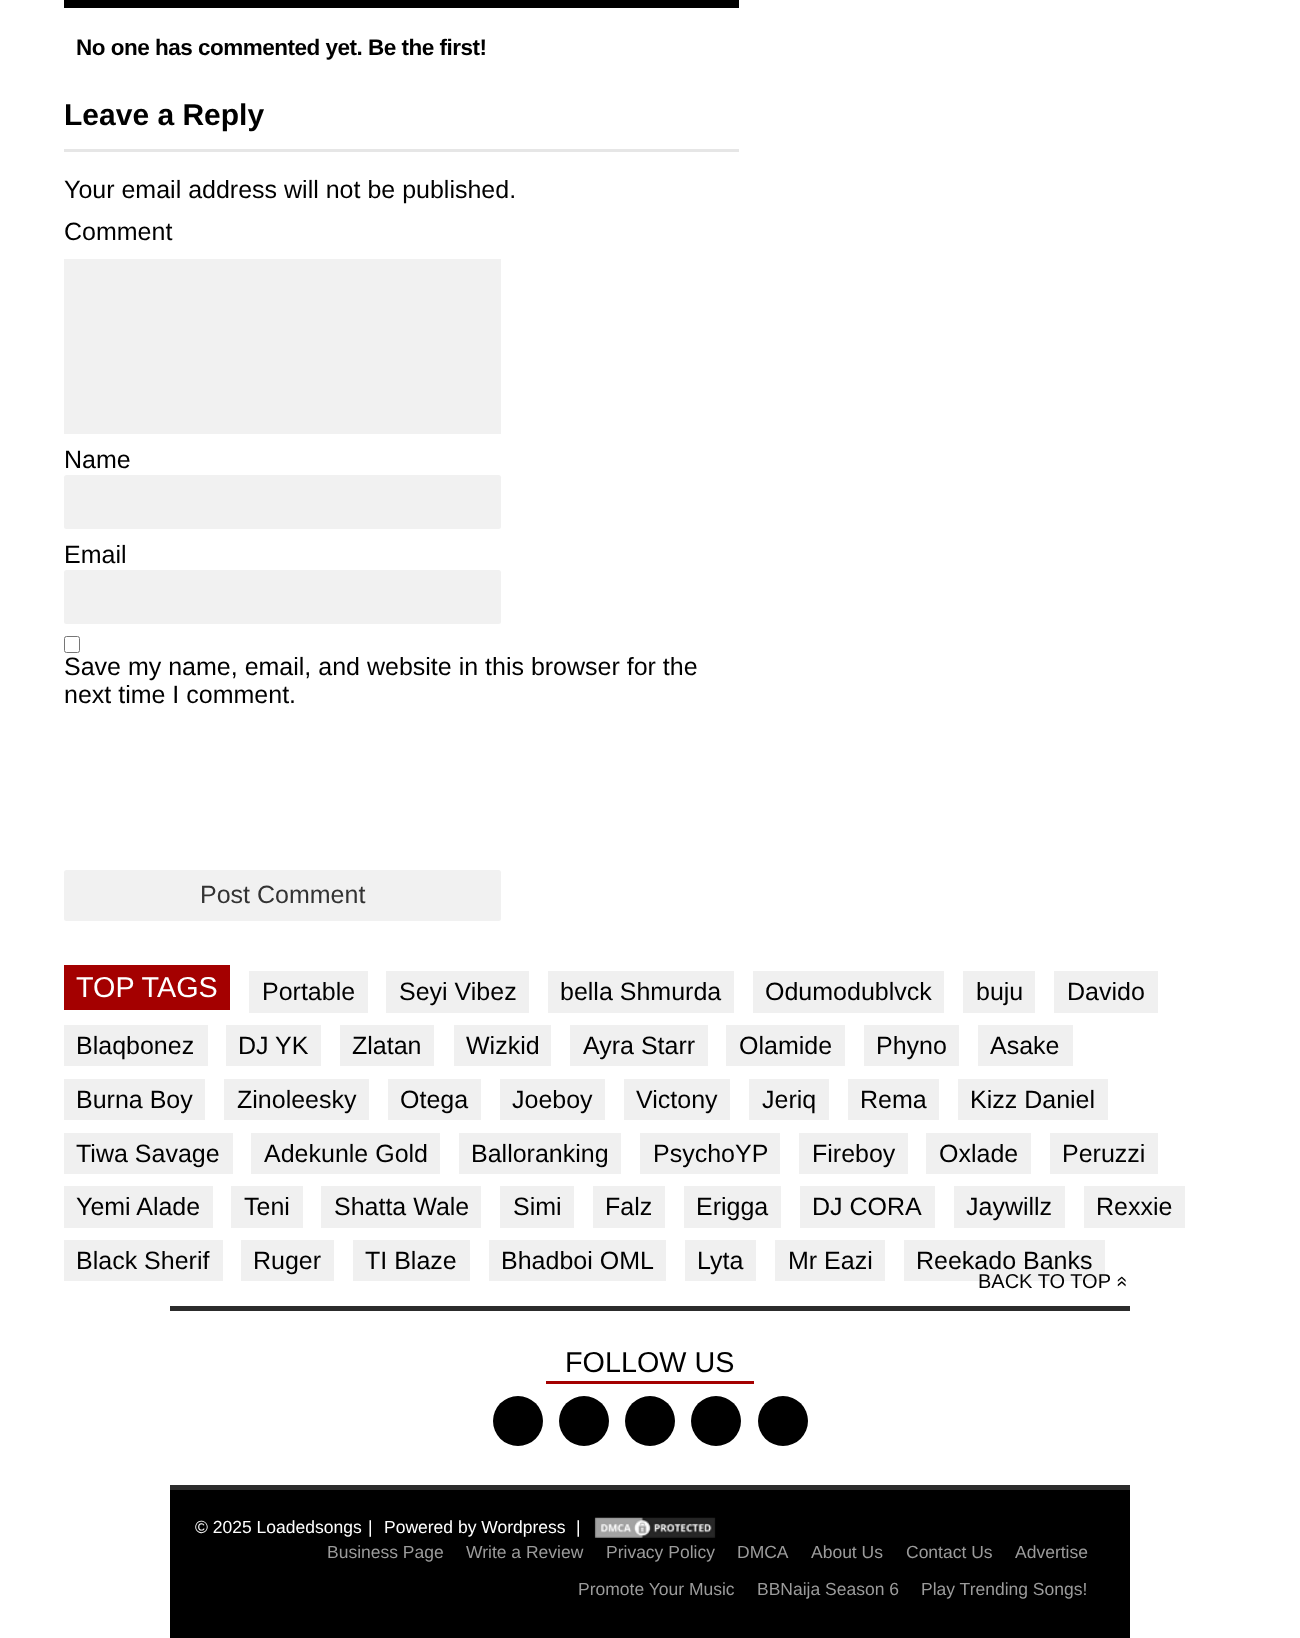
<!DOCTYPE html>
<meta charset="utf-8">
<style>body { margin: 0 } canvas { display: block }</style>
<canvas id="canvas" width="1300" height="1638"></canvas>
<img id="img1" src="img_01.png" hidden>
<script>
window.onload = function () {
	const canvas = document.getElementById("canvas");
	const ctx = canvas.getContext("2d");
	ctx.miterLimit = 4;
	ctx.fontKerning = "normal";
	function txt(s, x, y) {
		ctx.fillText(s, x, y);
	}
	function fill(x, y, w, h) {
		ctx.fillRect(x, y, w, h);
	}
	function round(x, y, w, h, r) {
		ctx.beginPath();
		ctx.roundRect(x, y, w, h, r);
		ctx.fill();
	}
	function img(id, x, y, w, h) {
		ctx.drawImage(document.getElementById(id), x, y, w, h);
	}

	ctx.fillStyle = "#FFFFFF";
	fill(0, 0, 1300, 1638);
	ctx.fillStyle = "#000000";
	fill(64, 0, 675, 8);
	ctx.fillStyle = "#E6E6E6";
	fill(64, 149, 675, 3);
	ctx.fillStyle = "#F1F1F1";
	fill(64, 259, 437, 175);
	round(64, 475, 437, 54, 2.5);
	round(64, 570, 437, 54, 2.5);
	ctx.beginPath();
	ctx.roundRect(64.5, 636.5, 15, 16, 2);
	ctx.strokeStyle = "#767676";
	ctx.stroke();
	round(64, 870, 437, 51, 2.5);
	ctx.fillStyle = "#A40000";
	fill(64, 965, 12, 45);
	fill(76, 965, 154, 45);
	ctx.fillStyle = "#F0F0F0";
	fill(249, 971, 119, 42);
	fill(386, 971, 143, 42);
	fill(548, 971, 186, 42);
	fill(753, 971, 191, 42);
	fill(963, 971, 72, 42);
	fill(1054, 971, 104, 42);
	fill(64, 1025, 144, 41);
	fill(226, 1025, 95, 41);
	fill(340, 1025, 94, 41);
	fill(454, 1025, 97, 41);
	fill(570, 1025, 138, 41);
	fill(726, 1025, 119, 41);
	fill(864, 1025, 95, 41);
	fill(978, 1025, 95, 41);
	fill(64, 1079, 141, 41);
	fill(224, 1079, 145, 41);
	fill(388, 1079, 93, 41);
	fill(500, 1079, 105, 41);
	fill(624, 1079, 106, 41);
	fill(749, 1079, 80, 41);
	fill(848, 1079, 91, 41);
	fill(958, 1079, 150, 41);
	fill(64, 1133, 169, 41);
	fill(251, 1133, 189, 41);
	fill(459, 1133, 162, 41);
	fill(640, 1133, 140, 41);
	fill(799, 1133, 109, 41);
	fill(926, 1133, 105, 41);
	fill(1050, 1133, 108, 41);
	fill(64, 1186, 149, 42);
	fill(231, 1186, 72, 42);
	fill(321, 1186, 160, 42);
	fill(500, 1186, 74, 42);
	fill(593, 1186, 72, 42);
	fill(684, 1186, 97, 42);
	fill(800, 1186, 135, 42);
	fill(954, 1186, 111, 42);
	fill(1084, 1186, 101, 42);
	fill(64, 1240, 159, 41);
	fill(241, 1240, 93, 41);
	fill(353, 1240, 117, 41);
	fill(489, 1240, 177, 41);
	fill(685, 1240, 71, 41);
	fill(775, 1240, 110, 41);
	fill(904, 1240, 201, 41);
	ctx.fillStyle = "#2C2C2C";
	fill(170, 1306, 960, 5);
	fill(170, 1485, 960, 5);
	ctx.fillStyle = "#A40000";
	fill(546, 1381, 208, 3);
	ctx.fillStyle = "#000000";
	ctx.beginPath();
	ctx.arc(518, 1421, 25, 0, Math.PI * 2);
	ctx.fill();
	ctx.beginPath();
	ctx.arc(584, 1421, 25, 0, Math.PI * 2);
	ctx.fill();
	ctx.beginPath();
	ctx.arc(650, 1421, 25, 0, Math.PI * 2);
	ctx.fill();
	ctx.beginPath();
	ctx.arc(716, 1421, 25, 0, Math.PI * 2);
	ctx.fill();
	ctx.beginPath();
	ctx.arc(783, 1421, 25, 0, Math.PI * 2);
	ctx.fill();
	fill(170, 1490, 960, 148);
	img("img1", 594, 1517, 122, 21);
	ctx.letterSpacing = "-0.5px";
	ctx.font = "bold 22.5px Liberation Sans";
	txt("No one has commented yet. Be the first!", 76, 55);
	ctx.letterSpacing = "0px";
	ctx.font = "bold 30px Liberation Sans";
	txt("Leave a Reply", 64, 125);
	ctx.font = "25px Liberation Sans";
	txt("Your email address will not be published.", 64, 198);
	txt("Comment", 64, 240);
	txt("Name", 64, 468);
	txt("Email", 64, 563);
	txt("Save my name, email, and website in this browser for the", 64, 675);
	txt("next time I comment.", 64, 703);
	ctx.fillStyle = "#333333";
	txt("Post Comment", 200, 903);
	ctx.font = "28.75px Liberation Sans";
	ctx.fillStyle = "#FFFFFF";
	txt("TOP TAGS", 76, 997);
	ctx.font = "25px Liberation Sans";
	ctx.fillStyle = "#000000";
	txt("Portable", 262, 1000);
	txt("Seyi Vibez", 399, 1000);
	txt("bella Shmurda", 560, 1000);
	txt("Odumodublvck", 765, 1000);
	txt("buju", 976, 1000);
	txt("Davido", 1067, 1000);
	txt("Blaqbonez", 76, 1054);
	txt("DJ YK", 238, 1054);
	txt("Zlatan", 352, 1054);
	txt("Wizkid", 466, 1054);
	txt("Ayra Starr", 583, 1054);
	txt("Olamide", 739, 1054);
	txt("Phyno", 876, 1054);
	txt("Asake", 990, 1054);
	txt("Burna Boy", 76, 1108);
	txt("Zinoleesky", 237, 1108);
	txt("Otega", 400, 1108);
	txt("Joeboy", 512, 1108);
	txt("Victony", 636, 1108);
	txt("Jeriq", 762, 1108);
	txt("Rema", 860, 1108);
	txt("Kizz Daniel", 970, 1108);
	txt("Tiwa Savage", 76, 1162);
	txt("Adekunle Gold", 264, 1162);
	txt("Balloranking", 471, 1162);
	txt("PsychoYP", 653, 1162);
	txt("Fireboy", 812, 1162);
	txt("Oxlade", 939, 1162);
	txt("Peruzzi", 1062, 1162);
	txt("Yemi Alade", 76, 1215);
	txt("Teni", 244, 1215);
	txt("Shatta Wale", 334, 1215);
	txt("Simi", 513, 1215);
	txt("Falz", 605, 1215);
	txt("Erigga", 696, 1215);
	txt("DJ CORA", 812, 1215);
	txt("Jaywillz", 966, 1215);
	txt("Rexxie", 1096, 1215);
	txt("Black Sherif", 76, 1269);
	txt("Ruger", 253, 1269);
	txt("TI Blaze", 365, 1269);
	txt("Bhadboi OML", 501, 1269);
	txt("Lyta", 697, 1269);
	txt("Mr Eazi", 788, 1269);
	txt("Reekado Banks", 916, 1269);
	ctx.font = "20px Liberation Sans";
	txt("BACK TO TOP", 978, 1288);
	ctx.save();
	ctx.translate(1127, 1287);
	ctx.rotate(-90 * Math.PI / 180);
	ctx.fillText("»", 0, 0);
	ctx.restore();
	ctx.font = "28.75px Liberation Sans";
	txt("FOLLOW US", 565, 1372);
	ctx.font = "17.5px Liberation Sans";
	ctx.fillStyle = "#FFFFFF";
	txt("© 2025 Loadedsongs", 195, 1533);
	txt("|", 368, 1533);
	txt("Powered by Wordpress", 384, 1533);
	txt("|", 576, 1533);
	ctx.fillStyle = "#9B9B9B";
	txt("Business Page", 327, 1558);
	txt("Write a Review", 466, 1558);
	txt("Privacy Policy", 606, 1558);
	txt("DMCA", 737, 1558);
	txt("About Us", 811, 1558);
	txt("Contact Us", 906, 1558);
	txt("Advertise", 1015, 1558);
	txt("Promote Your Music", 578, 1595);
	txt("BBNaija Season 6", 757, 1595);
	txt("Play Trending Songs!", 921, 1595);
};
</script>
